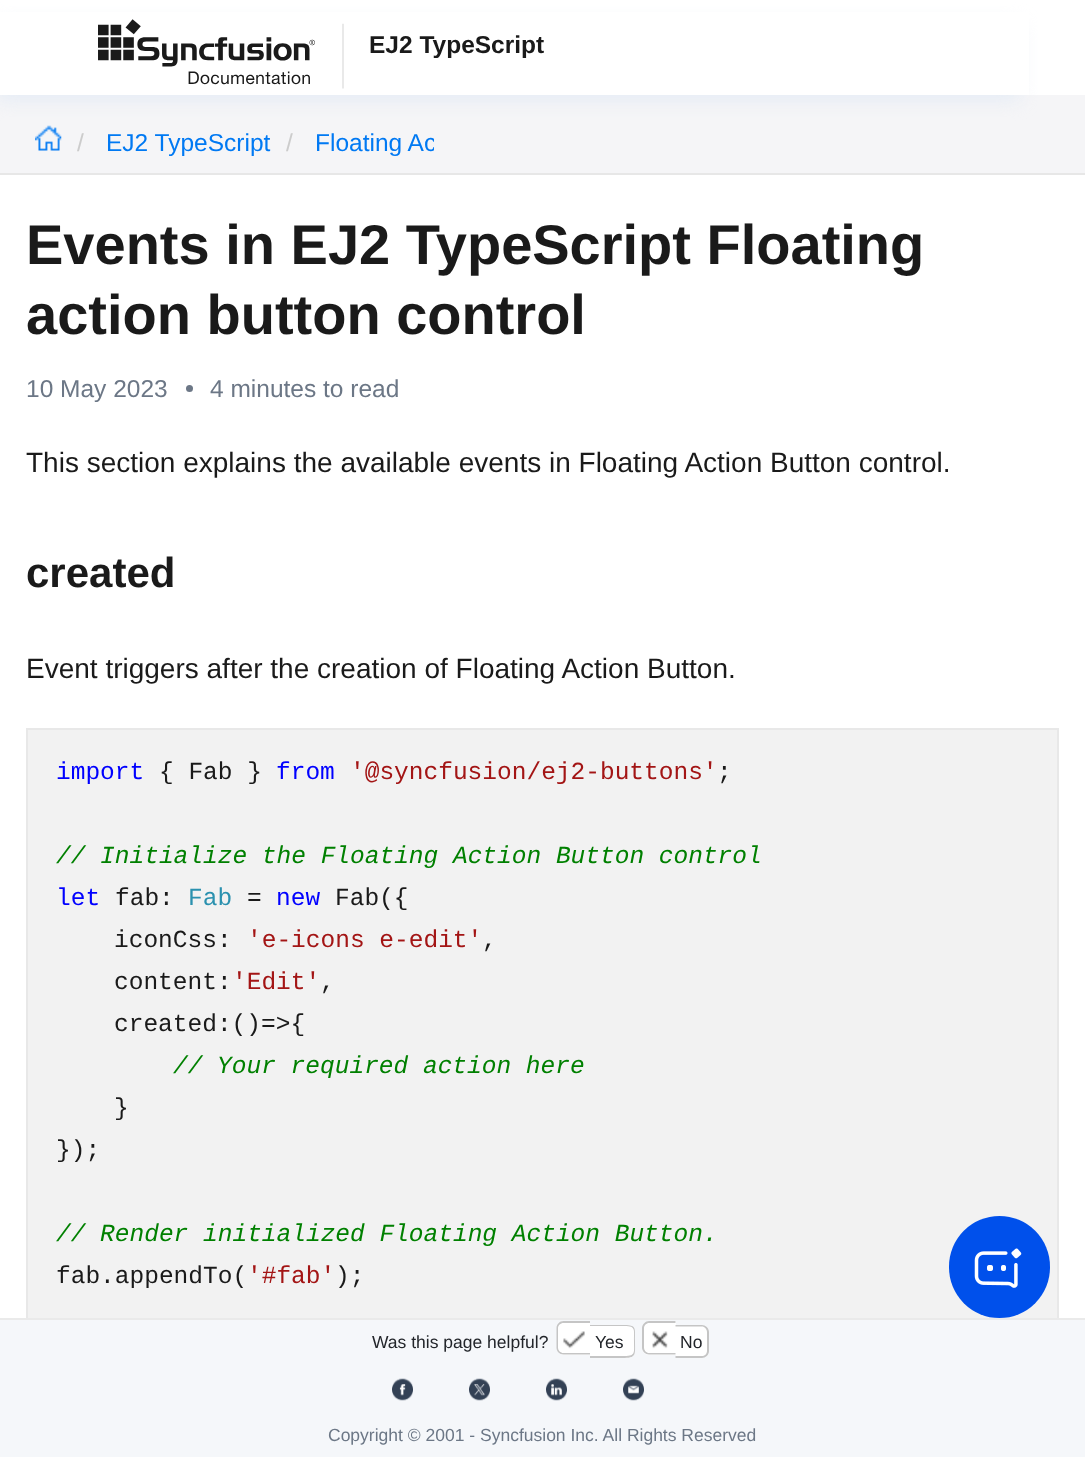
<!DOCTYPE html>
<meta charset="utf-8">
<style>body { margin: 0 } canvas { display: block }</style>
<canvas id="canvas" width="1085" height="1457"></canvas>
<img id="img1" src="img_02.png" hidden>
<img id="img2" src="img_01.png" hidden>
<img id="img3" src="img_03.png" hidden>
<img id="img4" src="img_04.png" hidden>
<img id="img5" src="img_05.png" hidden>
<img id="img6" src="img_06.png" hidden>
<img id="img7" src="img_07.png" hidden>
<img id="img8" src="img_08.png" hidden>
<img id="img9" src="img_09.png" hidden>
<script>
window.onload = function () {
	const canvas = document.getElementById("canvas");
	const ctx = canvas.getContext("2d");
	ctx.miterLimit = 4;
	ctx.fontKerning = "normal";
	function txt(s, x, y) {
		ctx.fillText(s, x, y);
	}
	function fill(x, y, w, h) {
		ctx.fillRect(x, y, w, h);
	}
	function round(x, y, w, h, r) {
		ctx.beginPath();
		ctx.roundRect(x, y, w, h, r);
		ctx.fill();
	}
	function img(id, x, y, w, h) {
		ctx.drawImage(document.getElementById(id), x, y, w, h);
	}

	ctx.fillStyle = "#FFFFFF";
	fill(0, 0, 1085, 1457);
	ctx.fillStyle = "#F5F5F7";
	fill(0, 95, 1085, 78);
	img("img1", 35, 125, 27, 26);
	ctx.fillStyle = "#E2EAF5";
	ctx.filter = "blur(9.5px)";
	ctx.beginPath();
	ctx.rect(-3, 25, 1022, 73);
	ctx.fill();
	ctx.filter = "none";
	ctx.fillStyle = "#FFFFFF";
	fill(0, 12, 1029, 83);
	img("img2", 98, 19, 246, 70);
	ctx.fillStyle = "#E7E7E7";
	fill(0, 173, 1085, 2);
	ctx.fillStyle = "#6C7786";
	ctx.beginPath();
	ctx.arc(189.5, 388.5, 3.5, 0, Math.PI * 2);
	ctx.fill();
	ctx.fillStyle = "#F2F2F2";
	fill(28, 730, 1029, 588);
	ctx.strokeStyle = "#E8E8E8";
	ctx.lineWidth = 2;
	ctx.strokeRect(27, 729, 1031, 591);
	ctx.fillStyle = "#0050EB";
	round(949, 1216, 101, 102, 50.5);
	img("img3", 974, 1248, 48, 40);
	ctx.fillStyle = "#F5F7FA";
	fill(0, 1320, 1085, 137);
	ctx.fillStyle = "#EAEAEA";
	fill(0, 1318, 1085, 2);
	ctx.fillStyle = "#FFFFFF";
	ctx.beginPath();
	ctx.roundRect(557, 1321, 33, 34, [7, 0, 0, 7]);
	ctx.fill();
	ctx.fillStyle = "#C5C5C5";
	ctx.beginPath();
	ctx.moveTo(563.5, 1321);
	ctx.lineTo(590, 1321);
	ctx.lineTo(590, 1354.5);
	ctx.lineTo(563.5, 1354.5);
	ctx.bezierCurveTo(559.5, 1354.5, 556.5, 1351.5, 556.5, 1347.5);
	ctx.lineTo(556.5, 1328);
	ctx.bezierCurveTo(556.5, 1324.5, 559.5, 1321, 563.5, 1321);
	ctx.closePath();
	ctx.moveTo(563.5, 1323);
	ctx.lineTo(590, 1323);
	ctx.lineTo(590, 1353);
	ctx.lineTo(563.5, 1353);
	ctx.bezierCurveTo(560.5, 1353, 558, 1350.5, 558, 1347.5);
	ctx.lineTo(558, 1328);
	ctx.bezierCurveTo(558, 1325.5, 560.5, 1323, 563.5, 1323);
	ctx.closePath();
	ctx.fill("evenodd");
	ctx.fillStyle = "#FFFFFF";
	ctx.beginPath();
	ctx.roundRect(590, 1325, 45, 33, [0, 7, 7, 0]);
	ctx.fill();
	ctx.fillStyle = "#C5C5C5";
	ctx.beginPath();
	ctx.moveTo(590, 1325);
	ctx.lineTo(622, 1325);
	ctx.bezierCurveTo(637, 1325, 635, 1327, 635, 1341);
	ctx.bezierCurveTo(635, 1355, 637, 1358, 622, 1358);
	ctx.lineTo(590, 1358);
	ctx.closePath();
	ctx.moveTo(590, 1326);
	ctx.lineTo(622, 1326);
	ctx.bezierCurveTo(636, 1326, 634, 1328, 634, 1341);
	ctx.bezierCurveTo(634, 1354, 636, 1356, 622, 1356);
	ctx.lineTo(590, 1356);
	ctx.closePath();
	ctx.fill("evenodd");
	img("img4", 563, 1331, 22, 18);
	ctx.fillStyle = "#FFFFFF";
	ctx.beginPath();
	ctx.roundRect(642, 1321, 34, 34, [7, 0, 0, 7]);
	ctx.fill();
	ctx.fillStyle = "#C5C5C5";
	ctx.beginPath();
	ctx.moveTo(649, 1321);
	ctx.lineTo(675.5, 1321);
	ctx.lineTo(675.5, 1354.5);
	ctx.lineTo(649, 1354.5);
	ctx.bezierCurveTo(645.5, 1354.5, 642, 1351.5, 642, 1347.5);
	ctx.lineTo(642, 1328);
	ctx.bezierCurveTo(642, 1324.5, 645.5, 1321, 649, 1321);
	ctx.closePath();
	ctx.moveTo(649, 1323);
	ctx.lineTo(675.5, 1323);
	ctx.lineTo(675.5, 1353);
	ctx.lineTo(649, 1353);
	ctx.bezierCurveTo(646.5, 1353, 644, 1350.5, 644, 1347.5);
	ctx.lineTo(644, 1328);
	ctx.bezierCurveTo(644, 1325.5, 646.5, 1323, 649, 1323);
	ctx.closePath();
	ctx.fill("evenodd");
	ctx.fillStyle = "#FFFFFF";
	ctx.beginPath();
	ctx.roundRect(676, 1325, 33, 33, [0, 7, 7, 0]);
	ctx.fill();
	ctx.fillStyle = "#C5C5C5";
	ctx.beginPath();
	ctx.moveTo(675.5, 1325);
	ctx.lineTo(702, 1325);
	ctx.bezierCurveTo(705.5, 1325, 709, 1328, 709, 1332);
	ctx.lineTo(709, 1351);
	ctx.bezierCurveTo(709, 1355, 705.5, 1358, 702, 1358);
	ctx.lineTo(675.5, 1358);
	ctx.closePath();
	ctx.moveTo(675.5, 1326.5);
	ctx.lineTo(702, 1326.5);
	ctx.bezierCurveTo(704.5, 1326.5, 707, 1329, 707, 1332);
	ctx.lineTo(707, 1351);
	ctx.bezierCurveTo(707, 1354, 704.5, 1356, 702, 1356);
	ctx.lineTo(675.5, 1356);
	ctx.closePath();
	ctx.fill("evenodd");
	img("img5", 652, 1331, 16, 18);
	img("img6", 392, 1378, 21, 23);
	img("img7", 469, 1378, 21, 23);
	img("img8", 546, 1378, 21, 23);
	img("img9", 623, 1378, 21, 23);
	ctx.font = "bold 24.5px Liberation Sans";
	ctx.fillStyle = "#1A1A1A";
	txt("EJ2 TypeScript", 369, 53);
	ctx.font = "24.5px Liberation Sans";
	ctx.fillStyle = "#CCCCCC";
	txt("/", 77, 151);
	ctx.fillStyle = "#0079F3";
	txt("EJ2 TypeScript", 106, 151);
	ctx.fillStyle = "#CCCCCC";
	txt("/", 286, 151);
	ctx.save();
	ctx.beginPath();
	ctx.rect(0, 95, 434, 71);
	ctx.clip();
	ctx.fillStyle = "#0079F3";
	txt("Floating Ac", 315, 151);
	ctx.restore();
	ctx.font = "bold 56px Liberation Sans";
	ctx.fillStyle = "#1A1A1A";
	txt("Events in EJ2 TypeScript Floating", 26, 264);
	txt("action button control", 26, 334);
	ctx.font = "24.5px Liberation Sans";
	ctx.fillStyle = "#6C7786";
	txt("10 May 2023", 26, 397);
	txt("4 minutes to read", 210, 397);
	ctx.font = "28px Liberation Sans";
	ctx.fillStyle = "#1A1A1A";
	txt("This section explains the available events in Floating Action Button control.", 26, 472);
	ctx.font = "bold 42px Liberation Sans";
	txt("created", 26, 587);
	ctx.font = "28px Liberation Sans";
	txt("Event triggers after the creation of Floating Action Button.", 26, 678);
	ctx.font = "24.5px Liberation Mono";
	ctx.fillStyle = "#0000FF";
	txt("import", 56, 779);
	ctx.fillStyle = "#1A1A1A";
	txt("{ Fab }", 159, 779);
	ctx.fillStyle = "#0000FF";
	txt("from", 276, 779);
	ctx.fillStyle = "#A31515";
	txt("'@syncfusion/ej2-buttons'", 350, 779);
	ctx.fillStyle = "#1A1A1A";
	txt(";", 717, 779);
	ctx.font = "italic 24.5px Liberation Mono";
	ctx.fillStyle = "#008000";
	txt("// Initialize the Floating Action Button control", 56, 863);
	ctx.font = "24.5px Liberation Mono";
	ctx.fillStyle = "#0000FF";
	txt("let", 56, 905);
	ctx.fillStyle = "#1A1A1A";
	txt("fab:", 115, 905);
	ctx.fillStyle = "#2B91AF";
	txt("Fab", 188, 905);
	ctx.fillStyle = "#1A1A1A";
	txt("=", 247, 905);
	ctx.fillStyle = "#0000FF";
	txt("new", 276, 905);
	ctx.fillStyle = "#1A1A1A";
	txt("Fab({", 335, 905);
	txt("iconCss:", 114, 947);
	ctx.fillStyle = "#A31515";
	txt("'e-icons e-edit'", 247, 947);
	ctx.fillStyle = "#1A1A1A";
	txt(",", 482, 947);
	txt("content:", 114, 989);
	ctx.fillStyle = "#A31515";
	txt("'Edit'", 232, 989);
	ctx.fillStyle = "#1A1A1A";
	txt(",", 320, 989);
	txt("created:()=>{", 114, 1031);
	ctx.font = "italic 24.5px Liberation Mono";
	ctx.fillStyle = "#008000";
	txt("// Your required action here", 173, 1073);
	ctx.font = "24.5px Liberation Mono";
	ctx.fillStyle = "#1A1A1A";
	txt("}", 114, 1115);
	txt("});", 56, 1157);
	ctx.font = "italic 24.5px Liberation Mono";
	ctx.fillStyle = "#008000";
	txt("// Render initialized Floating Action Button.", 56, 1241);
	ctx.font = "24.5px Liberation Mono";
	ctx.fillStyle = "#1A1A1A";
	txt("fab.appendTo(", 56, 1283);
	ctx.fillStyle = "#A31515";
	txt("'#fab'", 247, 1283);
	ctx.fillStyle = "#1A1A1A";
	txt(");", 335, 1283);
	ctx.font = "17.5px Liberation Sans";
	ctx.fillStyle = "#22252A";
	txt("Was this page helpful?", 372, 1348);
	txt("Yes", 595, 1348);
	txt("No", 680, 1348);
	ctx.fillStyle = "#6C7786";
	txt("Copyright © 2001 - Syncfusion Inc. All Rights Reserved", 328, 1441);
};
</script>
